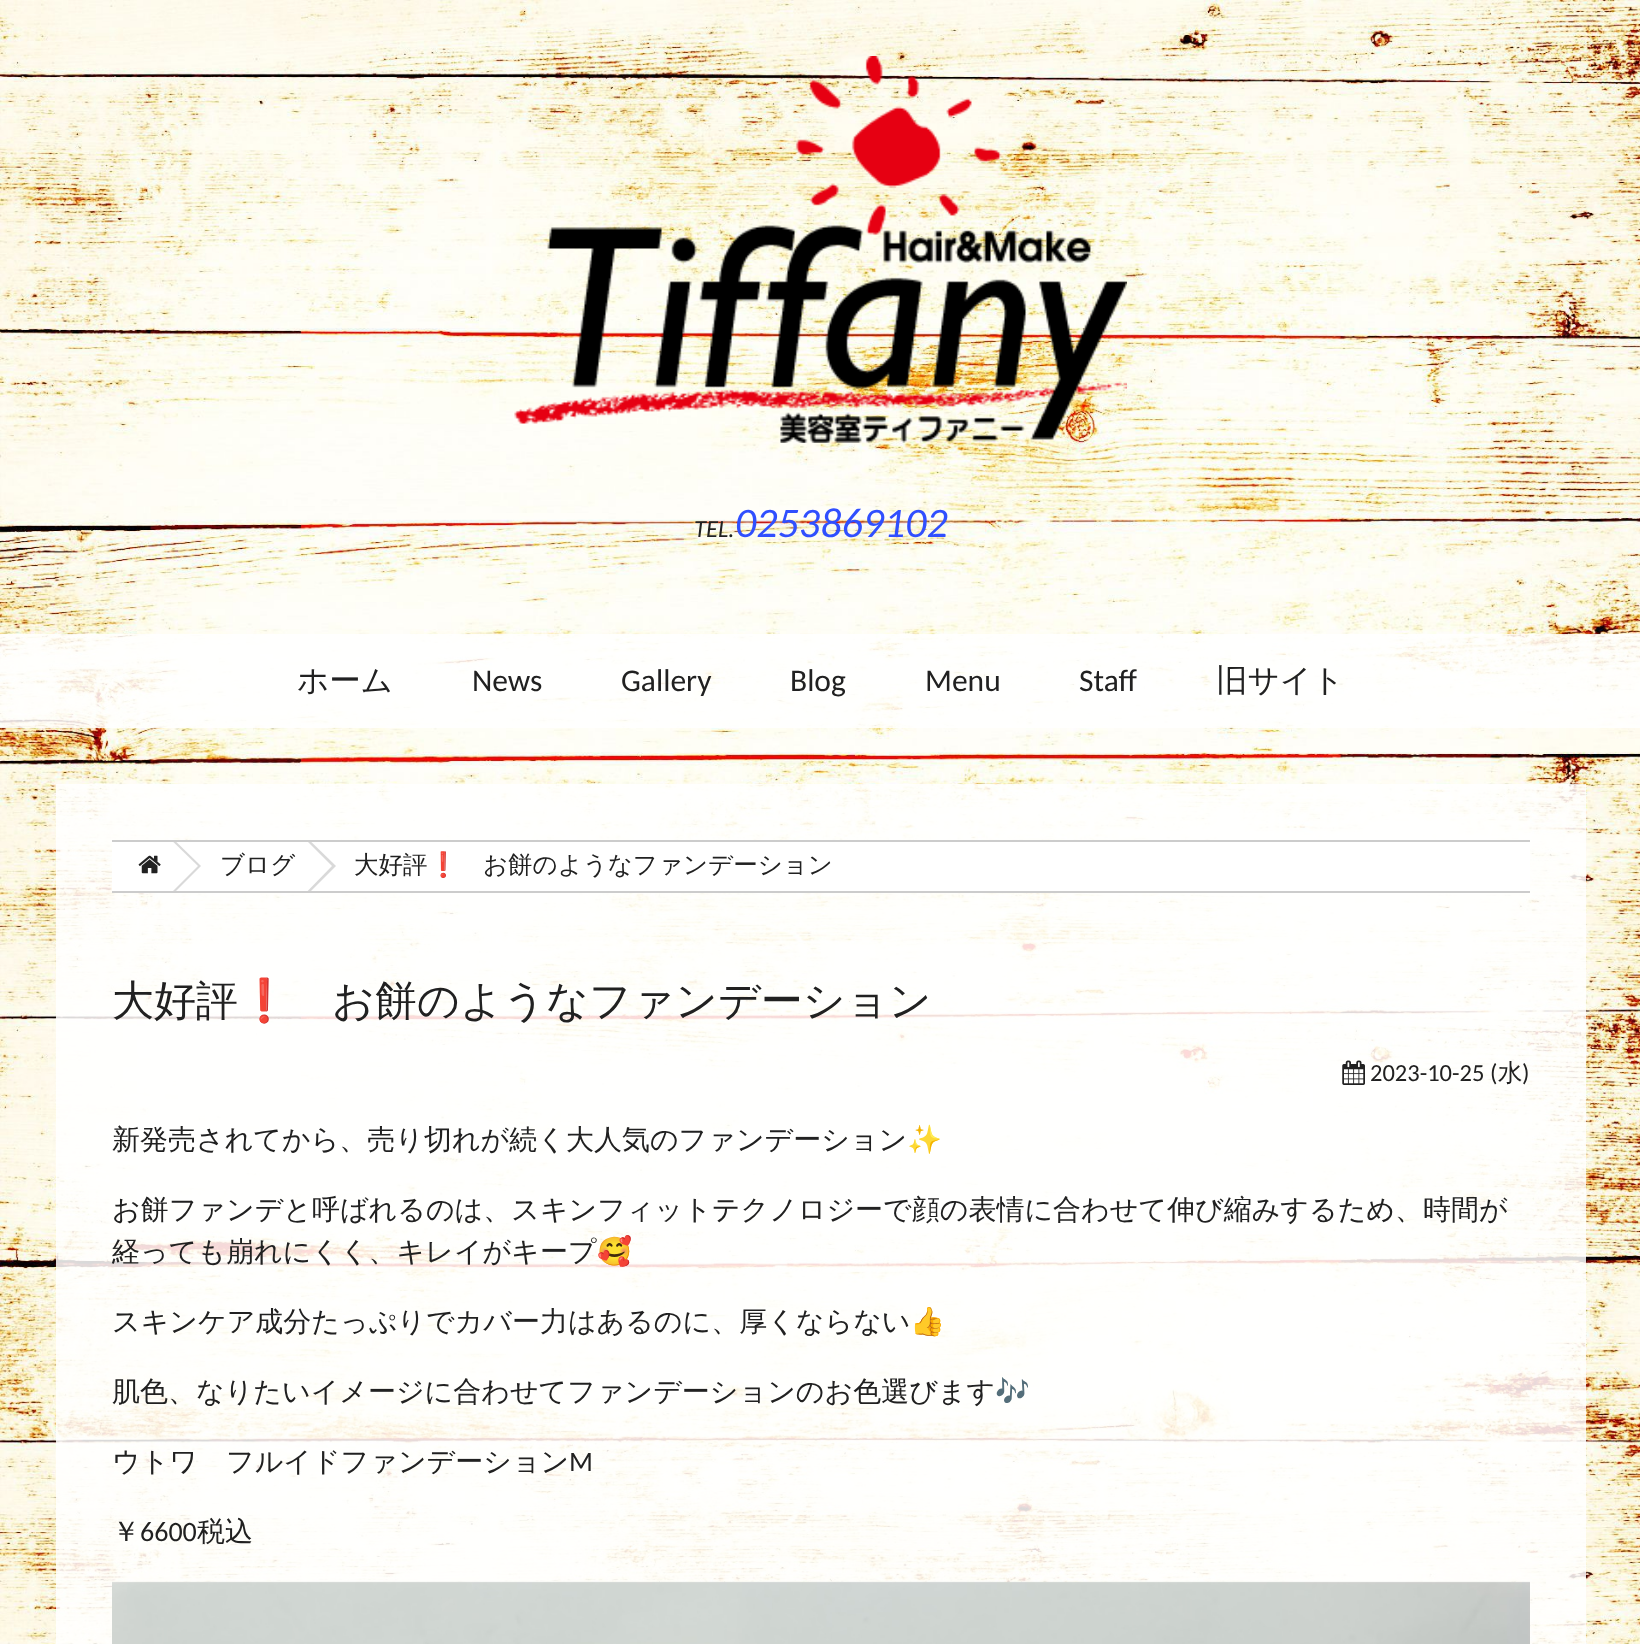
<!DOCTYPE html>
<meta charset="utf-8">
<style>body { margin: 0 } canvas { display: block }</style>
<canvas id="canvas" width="1640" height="1644"></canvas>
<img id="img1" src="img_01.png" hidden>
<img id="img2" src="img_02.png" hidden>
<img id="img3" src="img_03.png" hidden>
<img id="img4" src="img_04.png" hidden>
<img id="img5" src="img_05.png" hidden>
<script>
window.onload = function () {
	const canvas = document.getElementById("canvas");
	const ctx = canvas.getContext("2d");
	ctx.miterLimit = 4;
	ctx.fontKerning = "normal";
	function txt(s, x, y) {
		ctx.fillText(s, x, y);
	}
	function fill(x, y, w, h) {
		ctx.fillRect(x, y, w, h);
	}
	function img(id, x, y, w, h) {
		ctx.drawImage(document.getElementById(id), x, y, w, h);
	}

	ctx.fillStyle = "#FFFFFF";
	fill(0, 0, 1640, 1644);
	img("img1", 0, 0, 1640, 1644);
	img("img2", 514, 56, 613, 387);
	ctx.fillStyle = "rgba(255, 255, 255, 0.85)";
	fill(0, 634, 1640, 94);
	fill(56, 784, 1530, 860);
	ctx.fillStyle = "#FFFFFF";
	fill(112, 842, 1418, 49);
	ctx.fillStyle = "#CCCCCC";
	fill(112, 840, 1418, 2);
	fill(112, 891, 1418, 2);
	ctx.save();
	ctx.beginPath();
	ctx.rect(112, 842, 1418, 49);
	ctx.clip();
	ctx.fillStyle = "#D9D9D9";
	ctx.beginPath();
	ctx.moveTo(164, 903);
	ctx.lineTo(164, 830);
	ctx.lineTo(201, 866);
	ctx.closePath();
	ctx.fill();
	ctx.fillStyle = "#FFFFFF";
	ctx.beginPath();
	ctx.moveTo(161, 903);
	ctx.lineTo(161, 830);
	ctx.lineTo(198, 866);
	ctx.closePath();
	ctx.fill();
	ctx.restore();
	img("img3", 138, 855, 23, 19);
	ctx.save();
	ctx.beginPath();
	ctx.rect(112, 842, 1418, 49);
	ctx.clip();
	ctx.fillStyle = "#D9D9D9";
	ctx.beginPath();
	ctx.moveTo(299, 903);
	ctx.lineTo(299, 830);
	ctx.lineTo(336, 866);
	ctx.closePath();
	ctx.fill();
	ctx.fillStyle = "#FFFFFF";
	ctx.beginPath();
	ctx.moveTo(296, 903);
	ctx.lineTo(296, 830);
	ctx.lineTo(332, 866);
	ctx.closePath();
	ctx.fill();
	ctx.restore();
	img("img4", 1342, 1060, 23, 25);
	img("img5", 112, 1581, 1418, 63);
	ctx.font = "italic 24.5px Carlito";
	ctx.fillStyle = "#212121";
	txt("TEL.", 694, 537);
	ctx.font = "italic 42px Carlito";
	ctx.fillStyle = "#304FFE";
	txt("0253869102", 735, 537);
	ctx.font = "500 31.5px WenQuanYi Zen Hei";
	ctx.fillStyle = "#212121";
	txt("ホーム", 297, 691);
	ctx.font = "31.5px Carlito";
	txt("News", 472, 691);
	txt("Gallery", 621, 691);
	txt("Blog", 790, 691);
	txt("Menu", 925, 691);
	txt("Staff", 1079, 691);
	ctx.font = "500 31.5px WenQuanYi Zen Hei";
	txt("旧サイト", 1216, 691);
	ctx.font = "500 24.5px WenQuanYi Zen Hei";
	txt("ブログ", 220, 873);
	txt("大好評", 354, 873);
	ctx.font = "24.5px Noto Color Emoji";
	txt("❗️", 428, 873);
	ctx.font = "500 24.5px WenQuanYi Zen Hei";
	txt("お餅のようなファンデーション", 483, 873);
	ctx.font = "500 42px WenQuanYi Zen Hei";
	txt("大好評", 112, 1015);
	ctx.font = "42px Noto Color Emoji";
	txt("❗️", 238, 1015);
	ctx.font = "500 42px WenQuanYi Zen Hei";
	txt("お餅のようなファンデーション", 332, 1015);
	ctx.font = "24.5px Carlito";
	txt("2023-10-25 (", 1370, 1081);
	ctx.font = "500 24.5px WenQuanYi Zen Hei";
	txt("水", 1498, 1081);
	ctx.font = "24.5px Carlito";
	txt(")", 1522, 1081);
	ctx.font = "500 28px WenQuanYi Zen Hei";
	txt("新発売されてから、売り切れが続く大人気のファンデーション", 112, 1149);
	ctx.font = "28px Noto Color Emoji";
	txt("✨", 907, 1149);
	ctx.font = "500 28px WenQuanYi Zen Hei";
	txt("お餅ファンデと呼ばれるのは、スキンフィットテクノロジーで顔の表情に合わせて伸び縮みするため、時間が", 112, 1219);
	txt("経っても崩れにくく、キレイがキープ", 112, 1261);
	ctx.font = "28px Noto Color Emoji";
	txt("🥰", 597, 1261);
	ctx.font = "500 28px WenQuanYi Zen Hei";
	txt("スキンケア成分たっぷりでカバー力はあるのに、厚くならない", 112, 1331);
	ctx.font = "28px Noto Color Emoji";
	txt("👍", 910, 1331);
	ctx.font = "500 28px WenQuanYi Zen Hei";
	txt("肌色、なりたいイメージに合わせてファンデーションのお色選びます", 112, 1401);
	ctx.font = "28px Noto Color Emoji";
	txt("🎶", 995, 1401);
	ctx.font = "500 28px WenQuanYi Zen Hei";
	txt("ウトワ　フルイドファンデーション", 112, 1471);
	ctx.font = "28px Carlito";
	txt("M", 569, 1471);
	ctx.font = "500 28px WenQuanYi Zen Hei";
	txt("￥", 112, 1541);
	ctx.font = "28px Carlito";
	txt("6600", 140, 1541);
	ctx.font = "500 28px WenQuanYi Zen Hei";
	txt("税込", 197, 1541);
};
</script>
